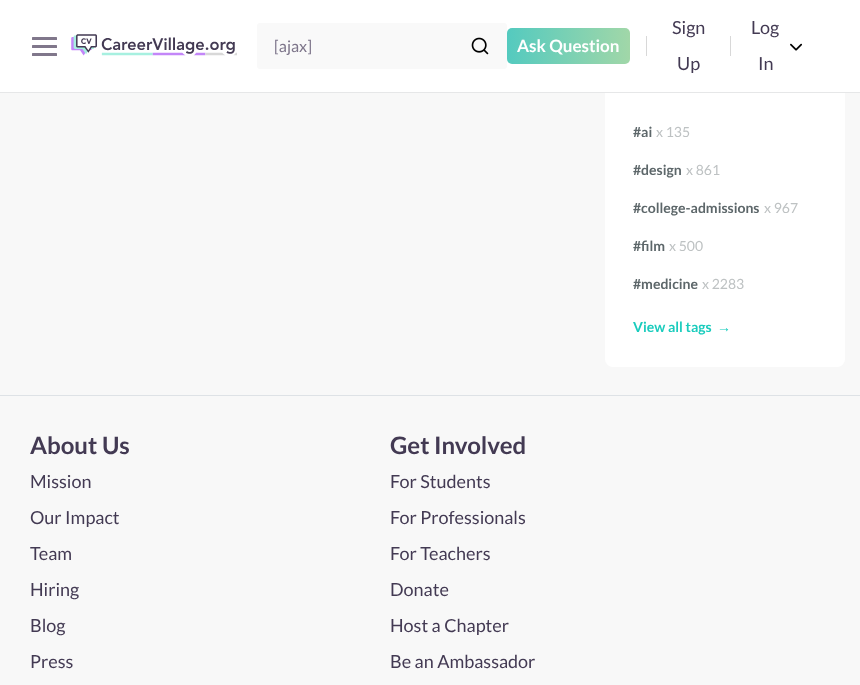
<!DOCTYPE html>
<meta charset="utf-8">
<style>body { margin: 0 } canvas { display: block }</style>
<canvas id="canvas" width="860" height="685"></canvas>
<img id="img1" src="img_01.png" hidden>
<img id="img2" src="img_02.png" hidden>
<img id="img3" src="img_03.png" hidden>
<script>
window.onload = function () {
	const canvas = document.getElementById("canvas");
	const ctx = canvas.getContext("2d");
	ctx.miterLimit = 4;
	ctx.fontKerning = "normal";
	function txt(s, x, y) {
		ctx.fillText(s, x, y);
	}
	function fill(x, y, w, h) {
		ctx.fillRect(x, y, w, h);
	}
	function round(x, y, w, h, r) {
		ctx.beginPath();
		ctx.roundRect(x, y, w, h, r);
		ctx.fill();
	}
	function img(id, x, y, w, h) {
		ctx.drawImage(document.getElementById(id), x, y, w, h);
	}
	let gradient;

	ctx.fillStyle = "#F8F8F8";
	fill(0, 0, 860, 685);
	ctx.fillStyle = "#FFFFFF";
	round(605, 53, 240, 314, 8);
	fill(0, 0, 860, 92);
	ctx.fillStyle = "#E6E7E8";
	fill(0, 92, 860, 1);
	ctx.fillStyle = "#80778B";
	round(32, 37, 25, 3, 0.5);
	round(32, 45, 25, 3, 0.5);
	round(32, 53, 25, 3, 0.5);
	img("img1", 71, 34, 166, 22);
	ctx.fillStyle = "#F9F9F9";
	round(257, 23, 250, 46, 3);
	img("img2", 471, 37, 18, 18);
	gradient = ctx.createLinearGradient(507, 46, 630, 46);
	gradient.addColorStop(0, "#54CABF");
	gradient.addColorStop(1, "#A1D7A8");
	ctx.fillStyle = gradient;
	round(507, 28, 123, 36, 5);
	ctx.fillStyle = "#D8D8D8";
	fill(646, 36, 1, 20);
	fill(730, 36, 1, 20);
	img("img3", 790, 43, 12, 8);
	ctx.fillStyle = "#DEE2E6";
	fill(0, 395, 860, 1);
	ctx.font = "16px Lato";
	ctx.fillStyle = "#7D758A";
	txt("[ajax]", 274, 52);
	ctx.font = "bold 17px Lato";
	ctx.fillStyle = "#FFFFFF";
	txt("Ask Question", 517, 52);
	ctx.font = "18px Lato";
	ctx.fillStyle = "#433A53";
	txt("Sign", 672, 34);
	txt("Up", 677, 70);
	txt("Log", 751, 34);
	txt("In", 758, 70);
	ctx.font = "bold 14px Lato";
	ctx.fillStyle = "#5D676A";
	txt("#ai", 633, 137);
	ctx.font = "14px Lato";
	ctx.fillStyle = "#BEC2C3";
	txt("x 135", 656, 137);
	ctx.font = "bold 14px Lato";
	ctx.fillStyle = "#5D676A";
	txt("#design", 633, 175);
	ctx.font = "14px Lato";
	ctx.fillStyle = "#BEC2C3";
	txt("x 861", 686, 175);
	ctx.font = "bold 14px Lato";
	ctx.fillStyle = "#5D676A";
	txt("#college-admissions", 633, 213);
	ctx.font = "14px Lato";
	ctx.fillStyle = "#BEC2C3";
	txt("x 967", 764, 213);
	ctx.font = "bold 14px Lato";
	ctx.fillStyle = "#5D676A";
	txt("#film", 633, 251);
	ctx.font = "14px Lato";
	ctx.fillStyle = "#BEC2C3";
	txt("x 500", 669, 251);
	ctx.font = "bold 14px Lato";
	ctx.fillStyle = "#5D676A";
	txt("#medicine", 633, 289);
	ctx.font = "14px Lato";
	ctx.fillStyle = "#BEC2C3";
	txt("x 2283", 702, 289);
	ctx.font = "bold 14px Lato";
	ctx.fillStyle = "#1ACCBD";
	txt("View all tags", 633, 332);
	ctx.font = "bold 14px Liberation Serif";
	txt("→", 717, 332);
	ctx.font = "bold 24px Lato";
	ctx.fillStyle = "#433A53";
	txt("About Us", 30, 454);
	ctx.font = "18px Lato";
	txt("Mission", 30, 488);
	txt("Our Impact", 30, 524);
	txt("Team", 30, 560);
	txt("Hiring", 30, 596);
	txt("Blog", 30, 632);
	txt("Press", 30, 668);
	ctx.font = "bold 24px Lato";
	txt("Get Involved", 390, 454);
	ctx.font = "18px Lato";
	txt("For Students", 390, 488);
	txt("For Professionals", 390, 524);
	txt("For Teachers", 390, 560);
	txt("Donate", 390, 596);
	txt("Host a Chapter", 390, 632);
	txt("Be an Ambassador", 390, 668);
};
</script>
